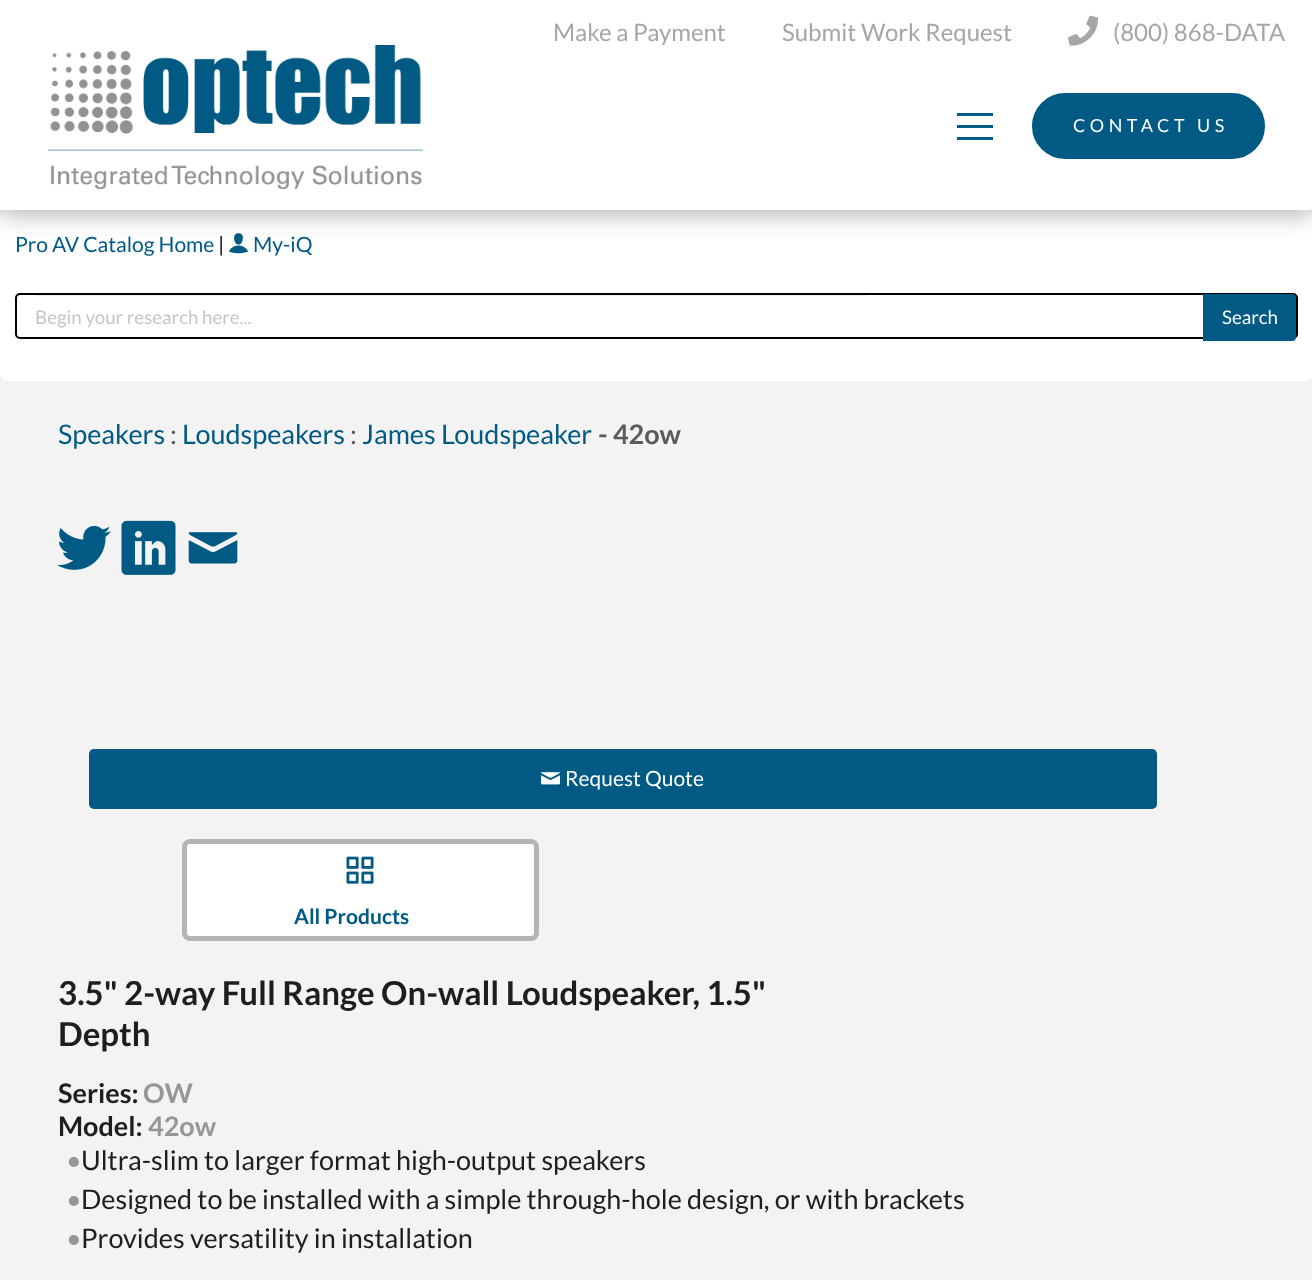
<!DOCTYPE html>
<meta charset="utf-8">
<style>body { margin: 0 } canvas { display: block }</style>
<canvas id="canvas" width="1312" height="1280"></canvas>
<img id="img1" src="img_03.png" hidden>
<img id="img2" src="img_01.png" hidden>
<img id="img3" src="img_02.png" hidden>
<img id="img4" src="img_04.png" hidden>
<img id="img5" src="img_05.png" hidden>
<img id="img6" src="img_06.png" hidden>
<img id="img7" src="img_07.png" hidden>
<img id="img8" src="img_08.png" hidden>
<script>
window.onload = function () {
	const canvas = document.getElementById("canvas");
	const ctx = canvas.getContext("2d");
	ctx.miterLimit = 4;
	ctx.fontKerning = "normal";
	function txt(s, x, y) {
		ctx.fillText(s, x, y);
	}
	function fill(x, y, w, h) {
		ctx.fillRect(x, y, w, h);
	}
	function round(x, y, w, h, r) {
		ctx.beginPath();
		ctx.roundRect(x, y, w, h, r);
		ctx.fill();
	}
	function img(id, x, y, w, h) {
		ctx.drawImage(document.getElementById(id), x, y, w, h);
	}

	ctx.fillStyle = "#F3F3F3";
	fill(0, 0, 1312, 1280);
	ctx.fillStyle = "#FFFFFF";
	ctx.beginPath();
	ctx.roundRect(1, 211, 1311, 169, 7);
	ctx.fill();
	ctx.strokeStyle = "#FFFFFF";
	ctx.lineWidth = 2;
	ctx.stroke();
	img("img1", 229, 233, 19, 21);
	ctx.fillStyle = "rgba(0, 0, 0, 0.29)";
	ctx.filter = "blur(11.5px)";
	ctx.beginPath();
	ctx.rect(0, 5, 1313, 210);
	ctx.fill();
	ctx.filter = "none";
	ctx.fillStyle = "#FFFFFF";
	fill(0, 0, 1312, 210);
	img("img2", 1068, 15, 30, 31);
	img("img3", 48, 45, 375, 144);
	ctx.fillStyle = "#005B85";
	fill(957, 113, 36, 3);
	fill(957, 125, 36, 3);
	fill(957, 137, 36, 3);
	ctx.fillStyle = "#005A84";
	ctx.beginPath();
	ctx.roundRect(1033.5, 94.5, 230, 63, 31.5);
	ctx.fill();
	ctx.strokeStyle = "#005A84";
	ctx.lineWidth = 3;
	ctx.stroke();
	ctx.beginPath();
	ctx.roundRect(16, 294, 1281, 44, 4);
	ctx.strokeStyle = "#000000";
	ctx.lineWidth = 2;
	ctx.stroke();
	ctx.fillStyle = "rgba(0, 0, 0, 0.07)";
	fill(35, 295, 832, 1);
	ctx.fillStyle = "#005A84";
	ctx.beginPath();
	ctx.roundRect(1203, 294, 93, 47, [0, 4, 4, 0]);
	ctx.fill();
	img("img4", 57, 525, 54, 45);
	img("img5", 121, 520, 55, 55);
	img("img6", 188, 532, 50, 32);
	round(89, 749, 1068, 60, 5);
	img("img7", 541, 772, 19, 13);
	ctx.fillStyle = "#FFFFFF";
	ctx.beginPath();
	ctx.roundRect(184.5, 841.5, 352, 97, 5.5);
	ctx.fill();
	ctx.strokeStyle = "#B4B4B4";
	ctx.lineWidth = 5;
	ctx.stroke();
	img("img8", 346, 856, 28, 28);
	ctx.font = "24px Lato";
	ctx.fillStyle = "#A6A6A6";
	txt("Make a Payment", 553, 41);
	txt("Submit Work Request", 782, 41);
	txt("(800) 868-DATA", 1113, 41);
	ctx.letterSpacing = "4.5px";
	ctx.font = "18px Lato";
	ctx.fillStyle = "#FFFFFF";
	txt("CONTACT US", 1073, 132);
	ctx.letterSpacing = "0px";
	ctx.font = "21px Lato";
	ctx.fillStyle = "#005A84";
	txt("Pro AV Catalog Home", 15, 252);
	ctx.fillStyle = "#000000";
	txt("|", 218, 252);
	ctx.fillStyle = "#005A84";
	txt("My-iQ", 253, 252);
	ctx.font = "18.75px Lato";
	ctx.fillStyle = "#C5C5C5";
	txt("Begin your research here...", 35, 324);
	ctx.fillStyle = "#FFFFFF";
	txt("Search", 1222, 324);
	ctx.font = "27px Lato";
	ctx.fillStyle = "#005A84";
	txt("Speakers", 58, 444);
	ctx.fillStyle = "#5A5A5A";
	txt(":", 170, 444);
	ctx.fillStyle = "#005A84";
	txt("Loudspeakers", 182, 444);
	ctx.fillStyle = "#5A5A5A";
	txt(":", 350, 444);
	ctx.fillStyle = "#005A84";
	txt("James Loudspeaker", 362, 444);
	ctx.font = "bold 27px Lato";
	ctx.fillStyle = "#5A5A5A";
	txt("- 42ow", 598, 444);
	ctx.font = "21px Lato";
	ctx.fillStyle = "#FFFFFF";
	txt("Request Quote", 565, 786);
	ctx.font = "bold 21px Lato";
	ctx.fillStyle = "#005A84";
	txt("All Products", 294, 924);
	ctx.font = "bold 33px Lato";
	ctx.fillStyle = "#1E1E1E";
	txt("3.5\" 2-way Full Range On-wall Loudspeaker, 1.5\"", 58, 1005);
	txt("Depth", 58, 1046);
	ctx.font = "bold 27px Lato";
	txt("Series:", 58, 1103);
	ctx.fillStyle = "#969696";
	txt("OW", 143, 1103);
	ctx.fillStyle = "#1E1E1E";
	txt("Model:", 58, 1136);
	ctx.fillStyle = "#969696";
	txt("42ow", 148, 1136);
	ctx.font = "27px Lato";
	txt("•", 66, 1170);
	ctx.fillStyle = "#1E1E1E";
	txt("Ultra-slim to larger format high-output speakers", 81, 1170);
	ctx.fillStyle = "#969696";
	txt("•", 66, 1209);
	ctx.fillStyle = "#1E1E1E";
	txt("Designed to be installed with a simple through-hole design, or with brackets", 81, 1209);
	ctx.fillStyle = "#969696";
	txt("•", 66, 1248);
	ctx.fillStyle = "#1E1E1E";
	txt("Provides versatility in installation", 81, 1248);
};
</script>
